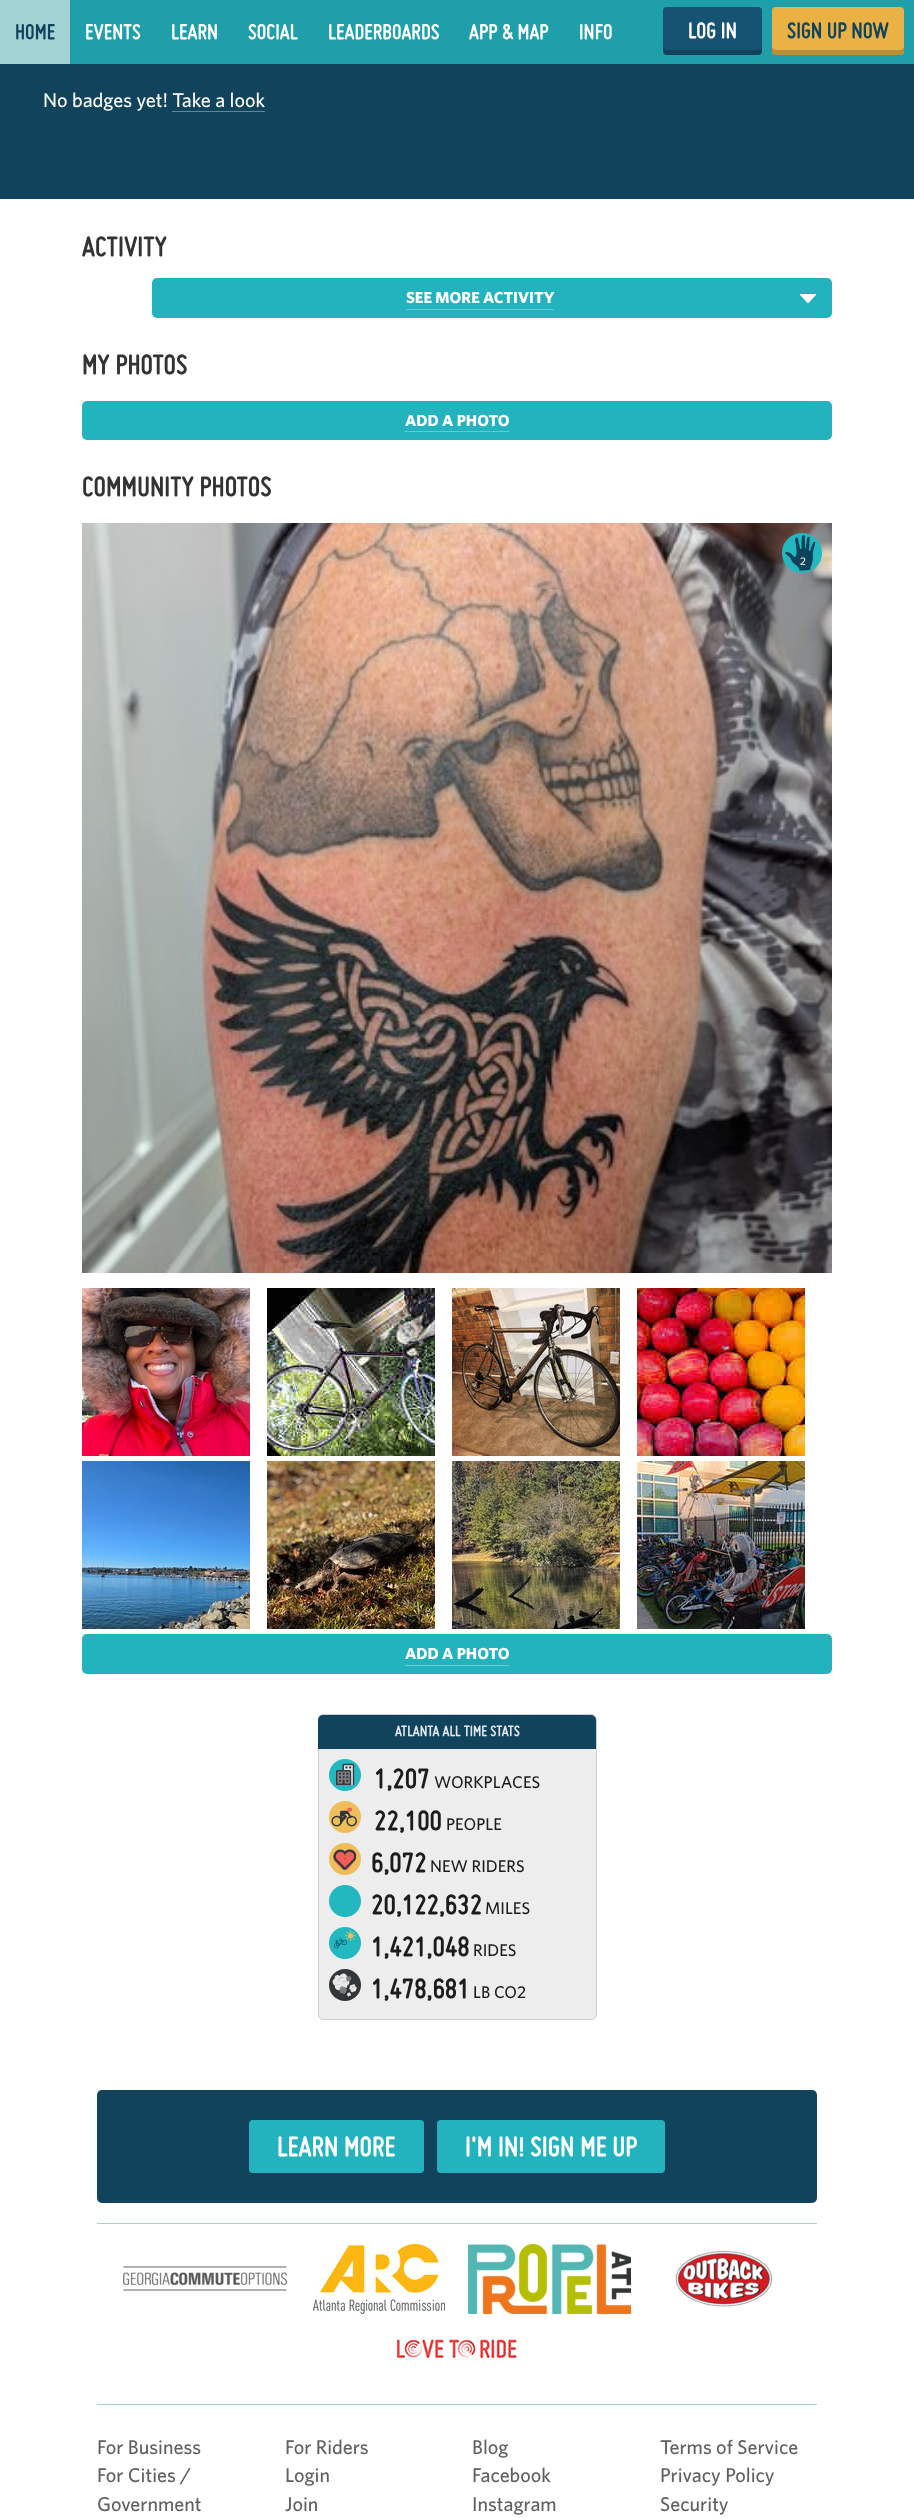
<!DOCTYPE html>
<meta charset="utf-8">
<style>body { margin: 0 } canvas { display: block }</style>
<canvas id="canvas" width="914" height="2518"></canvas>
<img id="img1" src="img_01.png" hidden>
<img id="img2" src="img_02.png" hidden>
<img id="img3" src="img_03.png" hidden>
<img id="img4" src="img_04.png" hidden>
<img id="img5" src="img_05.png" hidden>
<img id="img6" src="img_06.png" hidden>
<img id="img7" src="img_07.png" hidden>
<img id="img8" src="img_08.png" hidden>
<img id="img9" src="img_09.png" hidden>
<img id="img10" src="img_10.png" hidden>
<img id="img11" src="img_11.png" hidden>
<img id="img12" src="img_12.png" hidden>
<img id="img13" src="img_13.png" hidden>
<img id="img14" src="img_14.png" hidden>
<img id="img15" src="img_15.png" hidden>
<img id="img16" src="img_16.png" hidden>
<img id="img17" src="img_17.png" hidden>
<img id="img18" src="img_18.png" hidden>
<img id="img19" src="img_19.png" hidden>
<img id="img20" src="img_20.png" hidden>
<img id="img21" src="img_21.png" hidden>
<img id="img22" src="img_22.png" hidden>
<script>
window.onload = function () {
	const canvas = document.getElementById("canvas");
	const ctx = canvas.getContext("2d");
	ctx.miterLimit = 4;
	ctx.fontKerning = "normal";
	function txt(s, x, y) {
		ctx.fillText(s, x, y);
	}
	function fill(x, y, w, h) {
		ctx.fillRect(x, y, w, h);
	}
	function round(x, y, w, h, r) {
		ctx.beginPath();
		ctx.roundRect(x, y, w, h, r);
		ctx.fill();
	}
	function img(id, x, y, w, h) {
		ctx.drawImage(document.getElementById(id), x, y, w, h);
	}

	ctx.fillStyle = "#FFFFFF";
	fill(0, 0, 914, 2518);
	ctx.fillStyle = "#1E9FA9";
	fill(70, 0, 844, 64);
	ctx.fillStyle = "#A4D3D6";
	fill(0, 0, 70, 64);
	ctx.fillStyle = "#165272";
	round(663, 7, 99, 48, 4);
	ctx.fillStyle = "rgba(0, 0, 0, 0.2)";
	ctx.beginPath();
	ctx.moveTo(663, 46);
	ctx.lineTo(663, 51);
	ctx.bezierCurveTo(663, 53, 665, 55, 667, 55);
	ctx.lineTo(758, 55);
	ctx.bezierCurveTo(760, 55, 762, 53, 762, 51);
	ctx.lineTo(762, 46);
	ctx.bezierCurveTo(762, 48, 760, 50, 758, 50);
	ctx.lineTo(667, 50);
	ctx.bezierCurveTo(665, 50, 663, 48, 663, 46);
	ctx.closePath();
	ctx.fill();
	ctx.fillStyle = "#EAB244";
	round(772, 7, 132, 48, 4);
	ctx.fillStyle = "rgba(0, 0, 0, 0.2)";
	ctx.beginPath();
	ctx.moveTo(772, 46);
	ctx.lineTo(772, 51);
	ctx.bezierCurveTo(772, 53, 774, 55, 776, 55);
	ctx.lineTo(900, 55);
	ctx.bezierCurveTo(902, 55, 904, 53, 904, 51);
	ctx.lineTo(904, 46);
	ctx.bezierCurveTo(904, 48, 902, 50, 900, 50);
	ctx.lineTo(776, 50);
	ctx.bezierCurveTo(774, 50, 772, 48, 772, 46);
	ctx.closePath();
	ctx.fill();
	ctx.fillStyle = "#12435D";
	fill(0, 64, 914, 135);
	ctx.fillStyle = "#658596";
	fill(172, 111, 93, 1);
	ctx.fillStyle = "#22B3BF";
	round(152, 278, 680, 40, 5);
	ctx.fillStyle = "#64CAD2";
	fill(406, 309, 148, 1);
	img("img1", 800, 294, 16, 9);
	ctx.fillStyle = "#22B3BF";
	round(82, 401, 750, 39, 5);
	ctx.fillStyle = "#64CAD2";
	fill(405, 431, 104, 1);
	img("img2", 82, 523, 750, 750);
	img("img3", 782, 533, 40, 40);
	img("img4", 82, 1288, 168, 168);
	img("img5", 267, 1288, 168, 168);
	img("img6", 452, 1288, 168, 168);
	img("img7", 637, 1288, 168, 168);
	img("img8", 82, 1461, 168, 168);
	img("img9", 267, 1461, 168, 168);
	img("img10", 452, 1461, 168, 168);
	img("img11", 637, 1461, 168, 168);
	ctx.fillStyle = "#22B3BF";
	round(82, 1634, 750, 40, 5);
	ctx.fillStyle = "#64CAD2";
	fill(405, 1665, 104, 1);
	ctx.fillStyle = "#EDEDED";
	ctx.beginPath();
	ctx.roundRect(318.5, 1714.5, 278, 305, 4.5);
	ctx.fill();
	ctx.strokeStyle = "#D1D1D1";
	ctx.stroke();
	ctx.fillStyle = "#12435D";
	ctx.beginPath();
	ctx.roundRect(318, 1715, 278, 34, [5, 5, 0, 0]);
	ctx.fill();
	img("img12", 329, 1759, 32, 32);
	img("img13", 329, 1801, 32, 32);
	img("img14", 329, 1843, 32, 32);
	img("img15", 329, 1885, 32, 32);
	img("img16", 329, 1927, 32, 32);
	img("img17", 329, 1969, 32, 32);
	round(97, 2090, 720, 113, 5);
	ctx.fillStyle = "#22B3BF";
	round(249, 2120, 175, 53, 4);
	round(437, 2120, 228, 53, 4);
	ctx.fillStyle = "#A4D3D6";
	fill(97, 2223, 720, 1);
	fill(97, 2404, 720, 1);
	img("img18", 122, 2266, 166, 25);
	img("img19", 313, 2244, 132, 70);
	img("img20", 468, 2244, 163, 70);
	img("img21", 675, 2250, 98, 57);
	img("img22", 397, 2339, 120, 19);
	ctx.font = "italic bold 23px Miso";
	ctx.fillStyle = "#12435D";
	txt("HOME", 15, 39);
	ctx.fillStyle = "#FFFFFF";
	txt("EVENTS", 85, 39);
	txt("LEARN", 171, 39);
	txt("SOCIAL", 248, 39);
	txt("LEADERBOARDS", 328, 39);
	txt("APP & MAP", 469, 39);
	txt("INFO", 579, 39);
	ctx.font = "italic bold 24px Miso";
	txt("LOG IN", 688, 38);
	ctx.fillStyle = "#12435D";
	txt("SIGN UP NOW", 787, 38);
	ctx.font = "500 20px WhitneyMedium";
	ctx.fillStyle = "#FFFFFF";
	txt("No badges yet! Take a look", 43, 107);
	ctx.font = "italic bold 30px Miso";
	ctx.fillStyle = "#333333";
	txt("ACTIVITY", 82, 256);
	ctx.font = "bold 16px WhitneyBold";
	ctx.fillStyle = "#FFFFFF";
	txt("SEE MORE ACTIVITY", 406, 303);
	ctx.font = "italic bold 30px Miso";
	ctx.fillStyle = "#333333";
	txt("MY PHOTOS", 82, 374);
	ctx.font = "bold 16px WhitneyBold";
	ctx.fillStyle = "#FFFFFF";
	txt("ADD A PHOTO", 405, 426);
	ctx.font = "italic bold 30px Miso";
	ctx.fillStyle = "#333333";
	txt("COMMUNITY PHOTOS", 82, 496);
	ctx.font = "500 11px WhitneyMedium";
	ctx.fillStyle = "#FFFFFF";
	txt("2", 800, 565);
	ctx.font = "bold 16px WhitneyBold";
	txt("ADD A PHOTO", 405, 1659);
	ctx.font = "italic bold 16px Miso";
	ctx.fillStyle = "#E3E8EC";
	txt("ATLANTA ALL TIME STATS", 395, 1736);
	ctx.font = "italic bold 30px Miso";
	ctx.fillStyle = "#1C1C1C";
	txt("1,207", 374, 1788);
	ctx.font = "500 17px WhitneyMedium";
	txt("WORKPLACES", 434, 1788);
	ctx.font = "italic bold 30px Miso";
	txt("22,100", 374, 1830);
	ctx.font = "500 17px WhitneyMedium";
	txt("PEOPLE", 446, 1830);
	ctx.font = "italic bold 30px Miso";
	txt("6,072", 371, 1872);
	ctx.font = "500 17px WhitneyMedium";
	txt("NEW RIDERS", 430, 1872);
	ctx.font = "italic bold 30px Miso";
	txt("20,122,632", 371, 1914);
	ctx.font = "500 17px WhitneyMedium";
	txt("MILES", 485, 1914);
	ctx.font = "italic bold 30px Miso";
	txt("1,421,048", 371, 1956);
	ctx.font = "500 17px WhitneyMedium";
	txt("RIDES", 473, 1956);
	ctx.font = "italic bold 30px Miso";
	txt("1,478,681", 371, 1998);
	ctx.font = "500 17px WhitneyMedium";
	txt("LB CO2", 473, 1998);
	ctx.font = "italic bold 30px Miso";
	ctx.fillStyle = "#FFFFFF";
	txt("LEARN MORE", 277, 2156);
	txt("I'M IN! SIGN ME UP", 465, 2156);
	ctx.font = "500 20px WhitneyMedium";
	ctx.fillStyle = "#606060";
	txt("For Business", 97, 2454);
	txt("For Cities /", 97, 2482);
	txt("Government", 97, 2511);
	txt("For Riders", 285, 2454);
	txt("Login", 285, 2482);
	txt("Join", 285, 2511);
	txt("Blog", 472, 2454);
	txt("Facebook", 472, 2482);
	txt("Instagram", 472, 2511);
	txt("Terms of Service", 660, 2454);
	txt("Privacy Policy", 660, 2482);
	txt("Security", 660, 2511);
};
</script>
